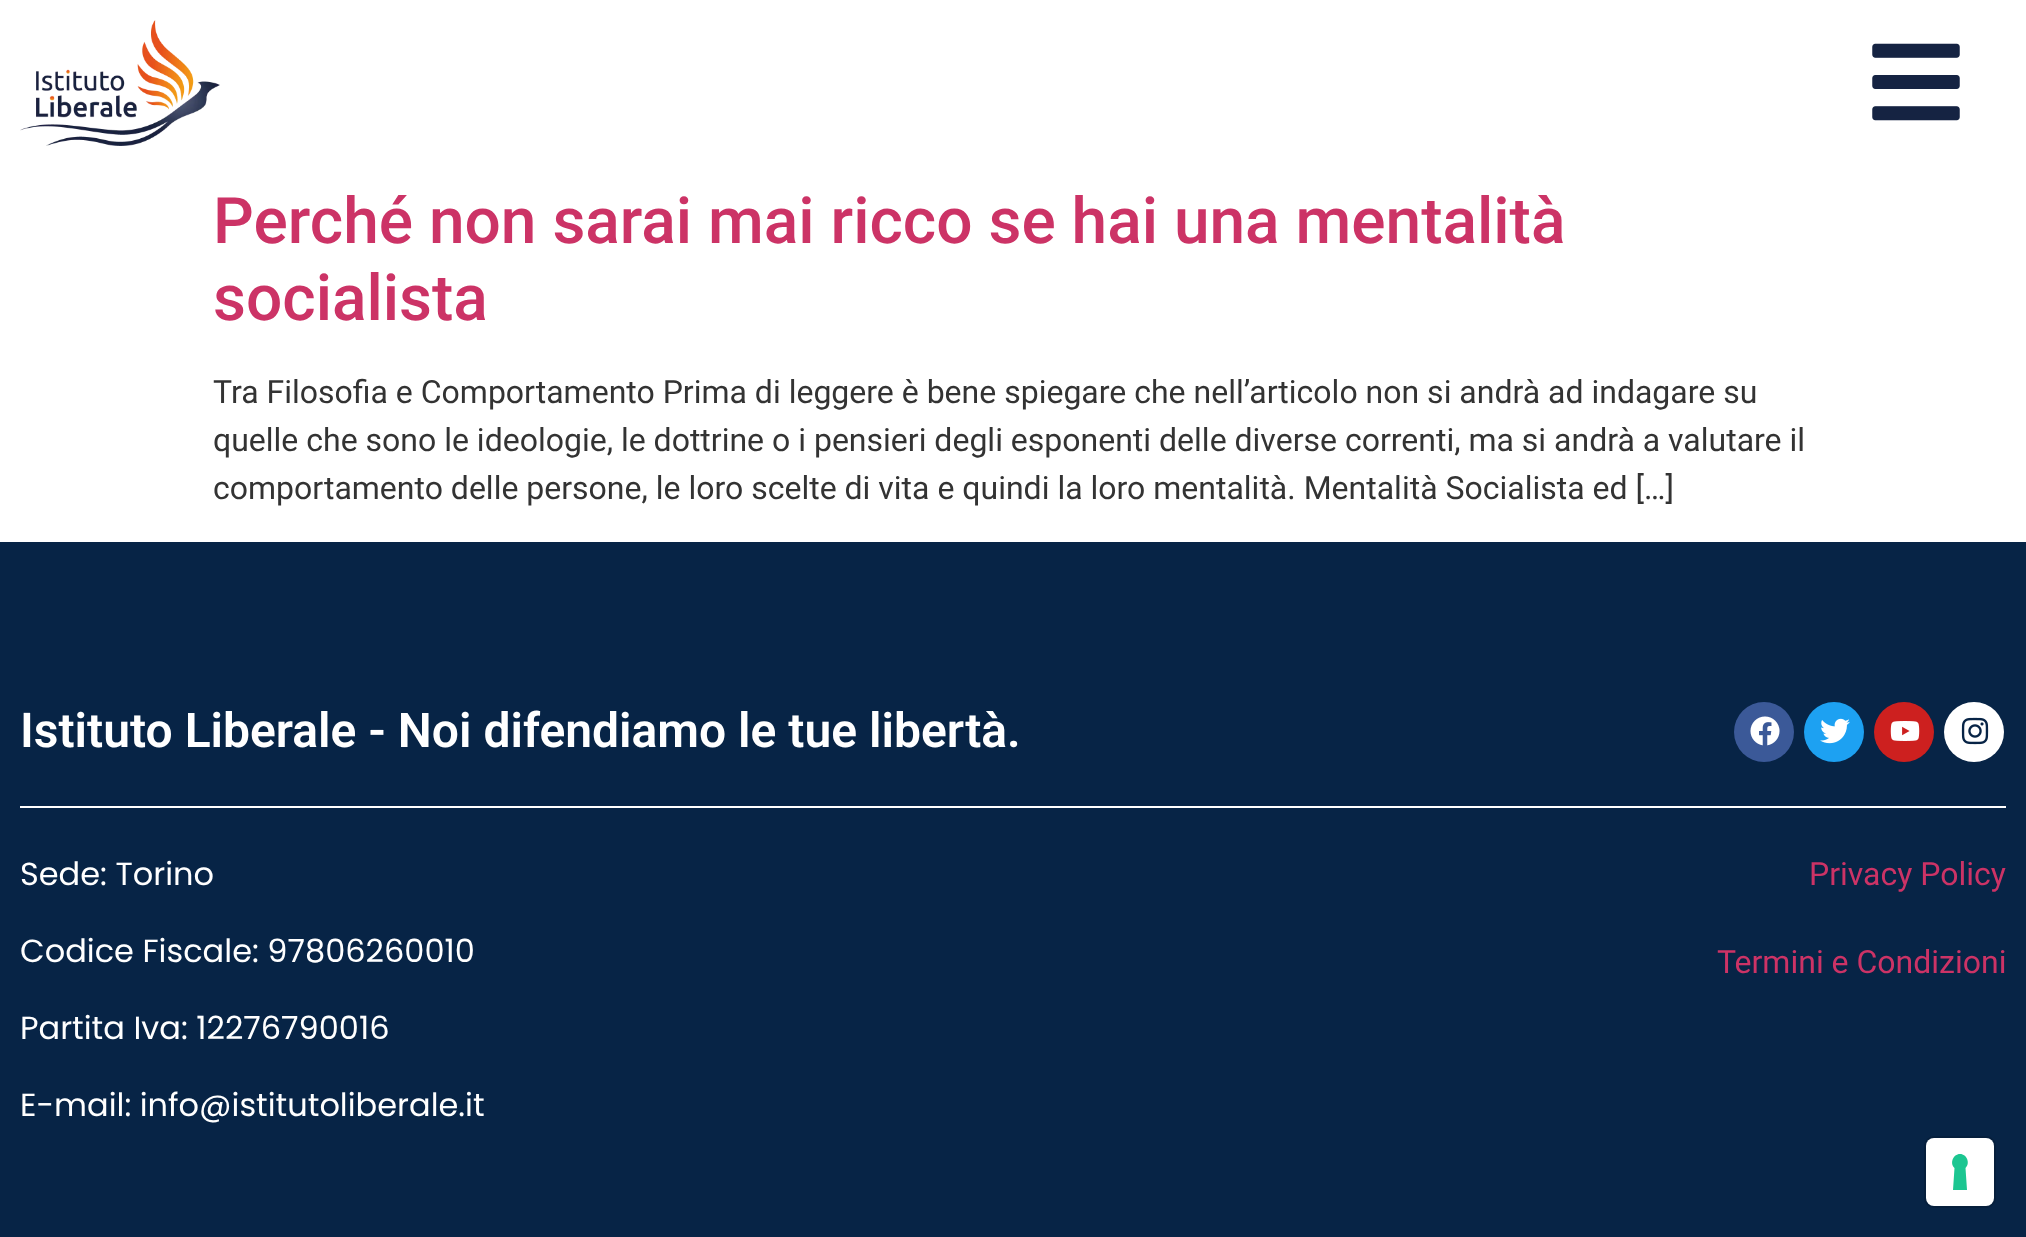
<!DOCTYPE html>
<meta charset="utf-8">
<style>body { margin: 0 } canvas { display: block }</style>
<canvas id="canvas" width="2026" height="1237"></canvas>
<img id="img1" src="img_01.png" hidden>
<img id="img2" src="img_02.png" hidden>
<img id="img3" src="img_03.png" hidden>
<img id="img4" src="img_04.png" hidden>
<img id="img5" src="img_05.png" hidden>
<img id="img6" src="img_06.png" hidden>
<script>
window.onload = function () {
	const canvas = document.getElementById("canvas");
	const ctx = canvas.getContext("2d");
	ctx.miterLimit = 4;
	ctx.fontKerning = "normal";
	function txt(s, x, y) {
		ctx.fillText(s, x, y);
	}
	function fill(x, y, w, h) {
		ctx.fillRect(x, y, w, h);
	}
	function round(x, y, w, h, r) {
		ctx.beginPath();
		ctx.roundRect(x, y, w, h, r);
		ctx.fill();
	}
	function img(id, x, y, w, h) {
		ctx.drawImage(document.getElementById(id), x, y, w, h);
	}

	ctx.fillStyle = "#FFFFFF";
	fill(0, 0, 2026, 1237);
	img("img1", 20, 20, 200, 126);
	img("img2", 1872, 43, 88, 78);
	ctx.fillStyle = "#072446";
	fill(0, 542, 2026, 695);
	ctx.fillStyle = "#3B5998";
	ctx.beginPath();
	ctx.arc(1764, 732, 30, 0, Math.PI * 2);
	ctx.fill();
	img("img3", 1750, 716, 30, 30);
	ctx.fillStyle = "#1DA1F2";
	ctx.beginPath();
	ctx.arc(1834, 732, 30, 0, Math.PI * 2);
	ctx.fill();
	img("img4", 1820, 718, 30, 26);
	ctx.fillStyle = "#CD201F";
	ctx.beginPath();
	ctx.arc(1904, 732, 30, 0, Math.PI * 2);
	ctx.fill();
	img("img5", 1890, 721, 30, 20);
	ctx.fillStyle = "#FFFFFF";
	ctx.beginPath();
	ctx.arc(1974, 732, 30, 0, Math.PI * 2);
	ctx.fill();
	img("img6", 1961, 717, 28, 28);
	fill(20, 806, 1986, 2);
	ctx.beginPath();
	ctx.roundRect(1925, 1137, 70, 70, 9);
	ctx.strokeStyle = "#061F3C";
	ctx.lineWidth = 2;
	ctx.stroke();
	round(1926, 1138, 68, 68, 8);
	ctx.fillStyle = "#1CC691";
	ctx.beginPath();
	ctx.moveTo(1960, 1154);
	ctx.bezierCurveTo(1967, 1154, 1970.5, 1163.5, 1965.5, 1168);
	ctx.lineTo(1967, 1190);
	ctx.lineTo(1953, 1190);
	ctx.lineTo(1954.5, 1168);
	ctx.bezierCurveTo(1949.5, 1163.5, 1953, 1154, 1960, 1154);
	ctx.closePath();
	ctx.fill("evenodd");
	ctx.font = "500 64px Roboto";
	ctx.fillStyle = "#CC3366";
	txt("Perché non sarai mai ricco se hai una mentalità", 213, 243);
	txt("socialista", 213, 320);
	ctx.font = "32px Roboto";
	ctx.fillStyle = "#333333";
	txt("Tra Filosofia e Comportamento Prima di leggere è bene spiegare che nell’articolo non si andrà ad indagare su", 213, 403);
	txt("quelle che sono le ideologie, le dottrine o i pensieri degli esponenti delle diverse correnti, ma si andrà a valutare il", 213, 451);
	txt("comportamento delle persone, le loro scelte di vita e quindi la loro mentalità. Mentalità Socialista ed […]", 213, 499);
	ctx.font = "600 48px Roboto";
	ctx.fillStyle = "#FFFFFF";
	txt("Istituto Liberale - Noi difendiamo le tue libertà.", 20, 747);
	ctx.font = "32px Poppins";
	txt("Sede: Torino", 20, 885);
	txt("Codice Fiscale: 97806260010", 20, 962);
	txt("Partita Iva: 12276790016", 20, 1039);
	txt("E-mail: info@istitutoliberale.it", 20, 1116);
	ctx.font = "32px Roboto";
	ctx.fillStyle = "#CC3366";
	txt("Privacy Policy", 1809, 885);
	txt("Termini e Condizioni", 1717, 973);
};
</script>
